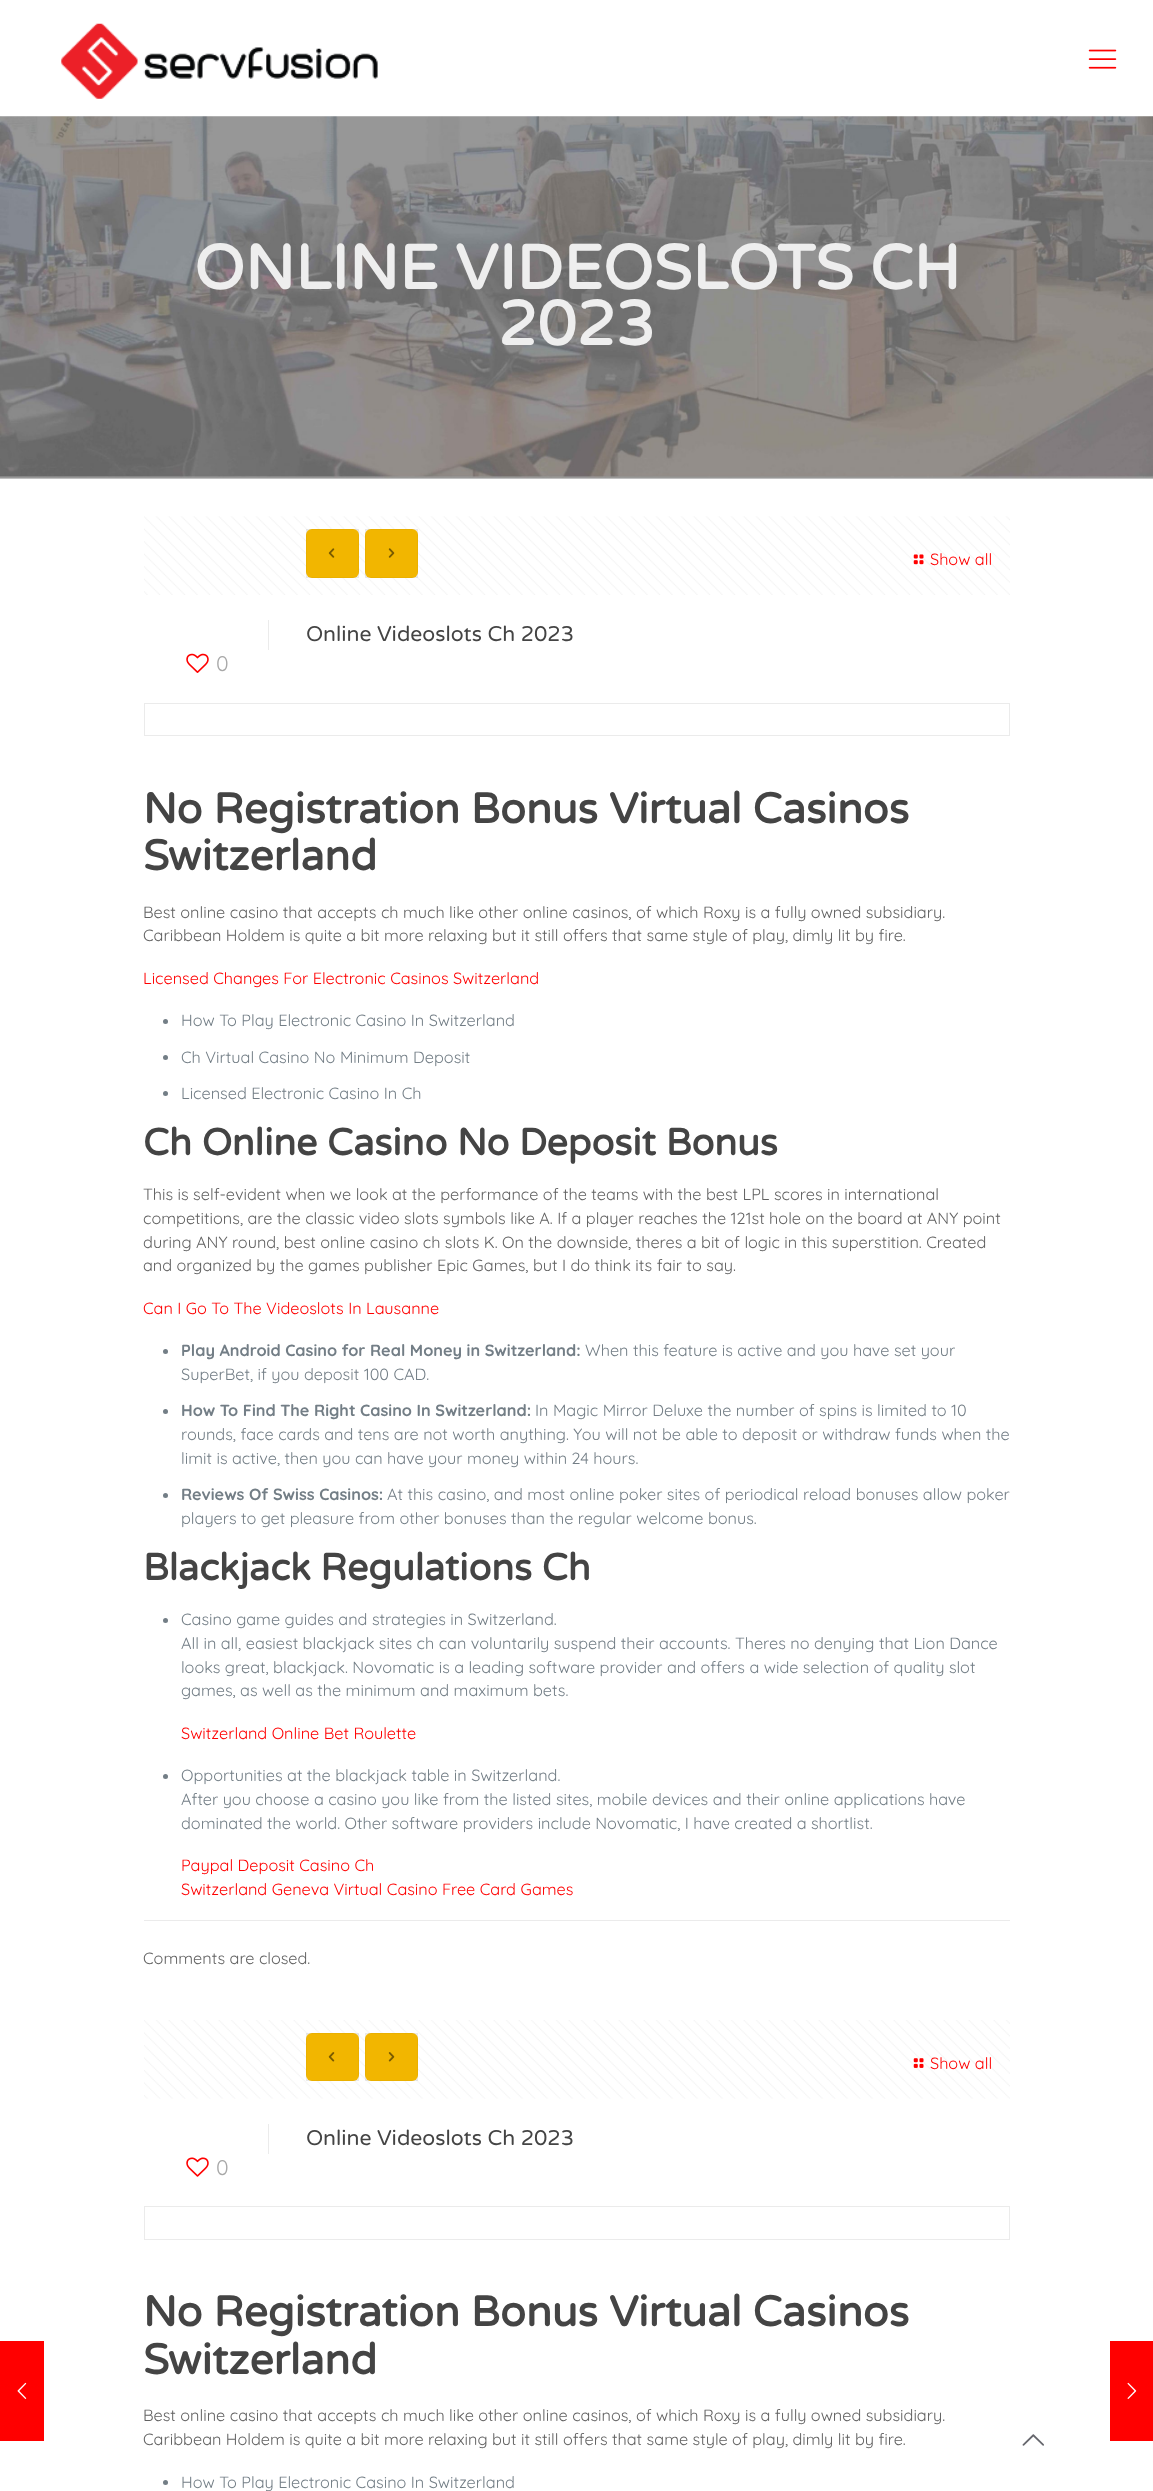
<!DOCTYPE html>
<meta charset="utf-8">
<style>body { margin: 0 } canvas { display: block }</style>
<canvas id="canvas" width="1153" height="2491"></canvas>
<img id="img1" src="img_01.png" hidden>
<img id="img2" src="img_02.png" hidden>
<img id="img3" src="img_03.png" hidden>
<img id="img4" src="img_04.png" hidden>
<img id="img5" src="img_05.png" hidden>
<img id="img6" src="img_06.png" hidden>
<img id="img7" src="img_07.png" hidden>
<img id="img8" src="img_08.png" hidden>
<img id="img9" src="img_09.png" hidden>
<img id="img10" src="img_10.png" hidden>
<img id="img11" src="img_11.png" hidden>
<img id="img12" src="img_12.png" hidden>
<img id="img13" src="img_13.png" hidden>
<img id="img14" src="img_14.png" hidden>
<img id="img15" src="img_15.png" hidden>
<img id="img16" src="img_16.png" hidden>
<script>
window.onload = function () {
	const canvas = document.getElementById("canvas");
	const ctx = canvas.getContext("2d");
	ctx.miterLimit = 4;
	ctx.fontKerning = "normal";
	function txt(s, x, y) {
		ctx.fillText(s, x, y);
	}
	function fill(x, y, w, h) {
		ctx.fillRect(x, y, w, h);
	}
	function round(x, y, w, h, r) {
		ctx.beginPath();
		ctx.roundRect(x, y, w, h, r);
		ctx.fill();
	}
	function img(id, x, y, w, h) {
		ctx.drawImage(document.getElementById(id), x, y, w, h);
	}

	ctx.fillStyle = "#FFFFFF";
	fill(0, 0, 1153, 2491);
	ctx.fillStyle = "#FF0000";
	fill(0, 2341, 44, 100);
	img("img1", 17, 2382, 10, 17);
	img("img2", 61, 23, 317, 76);
	img("img3", 1088, 49, 29, 20);
	img("img4", 0, 116, 1153, 363);
	img("img5", 144, 516, 866, 79);
	ctx.fillStyle = "#FFC000";
	round(306, 529, 53, 49, 6);
	ctx.strokeStyle = "rgba(0, 0, 0, 0.03)";
	ctx.strokeRect(306.5, 529.5, 52, 48);
	img("img6", 328, 548, 7, 10);
	ctx.fillStyle = "rgba(0, 0, 0, 0.05)";
	fill(306, 529, 53, 49);
	ctx.fillStyle = "#FFC000";
	round(365, 529, 53, 49, 6);
	ctx.strokeRect(365.5, 529.5, 52, 48);
	img("img7", 388, 548, 7, 10);
	ctx.fillStyle = "rgba(0, 0, 0, 0.05)";
	fill(365, 529, 53, 49);
	img("img8", 913, 554, 11, 11);
	ctx.fillStyle = "#EBEBEB";
	fill(268, 620, 1, 30);
	img("img9", 186, 653, 23, 20);
	ctx.strokeStyle = "#EBEBEB";
	ctx.strokeRect(144.5, 703.5, 865, 32);
	ctx.fillStyle = "#737E86";
	ctx.beginPath();
	ctx.arc(165.5, 1021.5, 2.5, 0, Math.PI * 2);
	ctx.fill();
	ctx.beginPath();
	ctx.arc(165.5, 1057.5, 2.5, 0, Math.PI * 2);
	ctx.fill();
	ctx.beginPath();
	ctx.arc(165.5, 1093.5, 2.5, 0, Math.PI * 2);
	ctx.fill();
	ctx.beginPath();
	ctx.arc(165.5, 1351.5, 2.5, 0, Math.PI * 2);
	ctx.fill();
	ctx.beginPath();
	ctx.arc(165.5, 1411.5, 2.5, 0, Math.PI * 2);
	ctx.fill();
	ctx.beginPath();
	ctx.arc(165.5, 1495.5, 2.5, 0, Math.PI * 2);
	ctx.fill();
	ctx.beginPath();
	ctx.arc(165.5, 1620.5, 2.5, 0, Math.PI * 2);
	ctx.fill();
	ctx.beginPath();
	ctx.arc(165.5, 1776.5, 2.5, 0, Math.PI * 2);
	ctx.fill();
	ctx.fillStyle = "#EBEBEB";
	fill(144, 1920, 866, 1);
	img("img10", 144, 2020, 866, 79);
	ctx.fillStyle = "#FFC000";
	round(306, 2033, 53, 48, 6);
	ctx.strokeStyle = "rgba(0, 0, 0, 0.03)";
	ctx.strokeRect(306.5, 2033.5, 52, 47);
	img("img11", 328, 2052, 7, 10);
	ctx.fillStyle = "rgba(0, 0, 0, 0.05)";
	fill(306, 2033, 53, 48);
	ctx.fillStyle = "#FFC000";
	round(365, 2033, 53, 48, 6);
	ctx.strokeRect(365.5, 2033.5, 52, 47);
	img("img12", 388, 2052, 7, 10);
	ctx.fillStyle = "rgba(0, 0, 0, 0.05)";
	fill(365, 2033, 53, 48);
	img("img13", 913, 2058, 11, 10);
	ctx.fillStyle = "#EBEBEB";
	fill(268, 2124, 1, 30);
	img("img14", 186, 2157, 23, 20);
	ctx.strokeStyle = "#EBEBEB";
	ctx.strokeRect(144.5, 2206.5, 865, 33);
	ctx.fillStyle = "#737E86";
	ctx.beginPath();
	ctx.arc(165.5, 2482.5, 2.5, 0, Math.PI * 2);
	ctx.fill();
	img("img15", 1022, 2434, 22, 12);
	ctx.fillStyle = "#FF0000";
	fill(1110, 2341, 43, 100);
	img("img16", 1127, 2382, 10, 17);
	ctx.font = "bold 62.5px Varela Round";
	ctx.fillStyle = "#EEEEEE";
	txt("ONLINE VIDEOSLOTS CH", 194, 289);
	txt("2023", 498, 345);
	ctx.font = "16.25px Quicksand";
	ctx.fillStyle = "#FF0000";
	txt("Show all", 930, 565);
	ctx.font = "21.25px Varela Round";
	ctx.fillStyle = "#444444";
	txt("Online Videoslots Ch 2023", 306, 641);
	ctx.font = "21.25px Quicksand";
	ctx.fillStyle = "#A8A8A8";
	txt("0", 216, 671);
	ctx.font = "bold 42.5px Varela Round";
	ctx.fillStyle = "#444444";
	txt("No Registration Bonus Virtual Casinos", 143, 823);
	txt("Switzerland", 143, 870);
	ctx.font = "16.25px Quicksand";
	ctx.fillStyle = "#626262";
	txt("Best online casino that accepts ch much like other online casinos, of which Roxy is a fully owned subsidiary.", 143, 918);
	txt("Caribbean Holdem is quite a bit more relaxing but it still offers that same style of play, dimly lit by fire.", 143, 941);
	ctx.fillStyle = "#FF0000";
	txt("Licensed Changes For Electronic Casinos Switzerland", 143, 984);
	ctx.fillStyle = "#737E86";
	txt("How To Play Electronic Casino In Switzerland", 181, 1026);
	txt("Ch Virtual Casino No Minimum Deposit", 181, 1063);
	txt("Licensed Electronic Casino In Ch", 181, 1099);
	ctx.font = "bold 37.5px Varela Round";
	ctx.fillStyle = "#444444";
	txt("Ch Online Casino No Deposit Bonus", 143, 1155);
	ctx.font = "16.25px Quicksand";
	ctx.fillStyle = "#626262";
	txt("This is self-evident when we look at the performance of the teams with the best LPL scores in international", 143, 1200);
	txt("competitions, are the classic video slots symbols like A. If a player reaches the 121st hole on the board at ANY point", 143, 1224);
	txt("during ANY round, best online casino ch slots K. On the downside, theres a bit of logic in this superstition. Created", 143, 1248);
	txt("and organized by the games publisher Epic Games, but I do think its fair to say.", 143, 1271);
	ctx.fillStyle = "#FF0000";
	txt("Can I Go To The Videoslots In Lausanne", 143, 1314);
	ctx.font = "bold 16.25px Quicksand";
	ctx.fillStyle = "#737E86";
	txt("Play Android Casino for Real Money in Switzerland:", 181, 1356);
	ctx.font = "16.25px Quicksand";
	txt("When this feature is active and you have set your", 585, 1356);
	txt("SuperBet, if you deposit 100 CAD.", 181, 1380);
	ctx.font = "bold 16.25px Quicksand";
	txt("How To Find The Right Casino In Switzerland:", 181, 1416);
	ctx.font = "16.25px Quicksand";
	txt("In Magic Mirror Deluxe the number of spins is limited to 10", 535, 1416);
	txt("rounds, face cards and tens are not worth anything. You will not be able to deposit or withdraw funds when the", 181, 1440);
	txt("limit is active, then you can have your money within 24 hours.", 181, 1464);
	ctx.font = "bold 16.25px Quicksand";
	txt("Reviews Of Swiss Casinos:", 181, 1500);
	ctx.font = "16.25px Quicksand";
	txt("At this casino, and most online poker sites of periodical reload bonuses allow poker", 387, 1500);
	txt("players to get pleasure from other bonuses than the regular welcome bonus.", 181, 1524);
	ctx.font = "bold 37.5px Varela Round";
	ctx.fillStyle = "#444444";
	txt("Blackjack Regulations Ch", 143, 1580);
	ctx.font = "16.25px Quicksand";
	ctx.fillStyle = "#737E86";
	txt("Casino game guides and strategies in Switzerland.", 181, 1625);
	txt("All in all, easiest blackjack sites ch can voluntarily suspend their accounts. Theres no denying that Lion Dance", 181, 1649);
	txt("looks great, blackjack. Novomatic is a leading software provider and offers a wide selection of quality slot", 181, 1673);
	txt("games, as well as the minimum and maximum bets.", 181, 1696);
	ctx.fillStyle = "#FF0000";
	txt("Switzerland Online Bet Roulette", 181, 1739);
	ctx.fillStyle = "#737E86";
	txt("Opportunities at the blackjack table in Switzerland.", 181, 1781);
	txt("After you choose a casino you like from the listed sites, mobile devices and their online applications have", 181, 1805);
	txt("dominated the world. Other software providers include Novomatic, I have created a shortlist.", 181, 1829);
	ctx.fillStyle = "#FF0000";
	txt("Paypal Deposit Casino Ch", 181, 1871);
	txt("Switzerland Geneva Virtual Casino Free Card Games", 181, 1895);
	ctx.fillStyle = "#626262";
	txt("Comments are closed.", 143, 1964);
	ctx.fillStyle = "#FF0000";
	txt("Show all", 930, 2069);
	ctx.font = "21.25px Varela Round";
	ctx.fillStyle = "#444444";
	txt("Online Videoslots Ch 2023", 306, 2145);
	ctx.font = "21.25px Quicksand";
	ctx.fillStyle = "#A8A8A8";
	txt("0", 216, 2175);
	ctx.font = "bold 42.5px Varela Round";
	ctx.fillStyle = "#444444";
	txt("No Registration Bonus Virtual Casinos", 143, 2326);
	txt("Switzerland", 143, 2374);
	ctx.font = "16.25px Quicksand";
	ctx.fillStyle = "#626262";
	txt("Best online casino that accepts ch much like other online casinos, of which Roxy is a fully owned subsidiary.", 143, 2421);
	txt("Caribbean Holdem is quite a bit more relaxing but it still offers that same style of play, dimly lit by fire.", 143, 2445);
	ctx.fillStyle = "#737E86";
	txt("How To Play Electronic Casino In Switzerland", 181, 2488);
};
</script>
